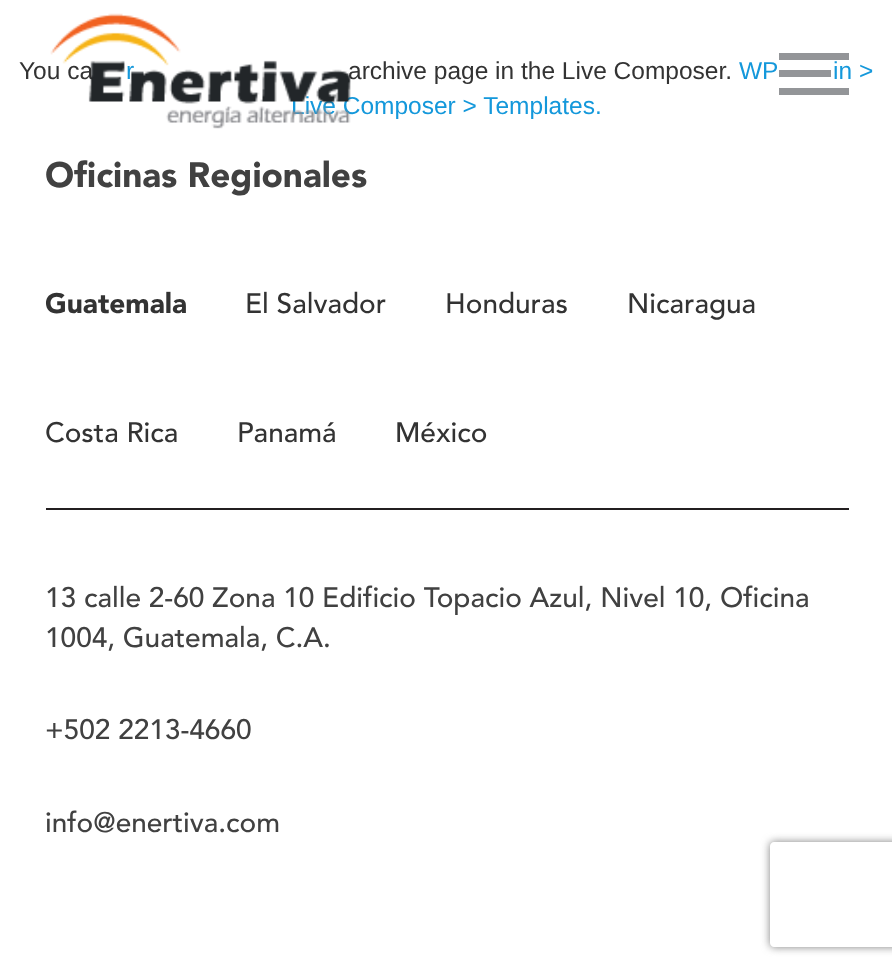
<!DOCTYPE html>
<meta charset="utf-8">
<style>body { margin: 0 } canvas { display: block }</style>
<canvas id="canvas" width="892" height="970"></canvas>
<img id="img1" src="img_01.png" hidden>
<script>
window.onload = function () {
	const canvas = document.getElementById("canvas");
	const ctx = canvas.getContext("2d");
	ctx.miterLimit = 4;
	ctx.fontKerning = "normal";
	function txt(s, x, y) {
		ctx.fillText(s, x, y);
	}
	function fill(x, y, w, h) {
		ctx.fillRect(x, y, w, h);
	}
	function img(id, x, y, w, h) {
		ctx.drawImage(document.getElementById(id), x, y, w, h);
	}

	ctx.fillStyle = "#FFFFFF";
	fill(0, 0, 892, 970);
	ctx.fillStyle = "#939598";
	fill(779, 88, 70, 7);
	fill(779, 53, 70, 7);
	fill(779, 70, 52, 7);
	ctx.fillStyle = "#231F20";
	fill(46, 508, 803, 2);
	ctx.save();
	ctx.beginPath();
	ctx.moveTo(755, 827);
	ctx.lineTo(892, 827);
	ctx.lineTo(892, 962);
	ctx.lineTo(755, 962);
	ctx.closePath();
	ctx.moveTo(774, 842);
	ctx.lineTo(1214, 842);
	ctx.bezierCurveTo(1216, 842, 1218, 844, 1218, 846);
	ctx.lineTo(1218, 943);
	ctx.bezierCurveTo(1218, 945, 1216, 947, 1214, 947);
	ctx.lineTo(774, 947);
	ctx.bezierCurveTo(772, 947, 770, 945, 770, 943);
	ctx.lineTo(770, 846);
	ctx.bezierCurveTo(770, 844, 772, 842, 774, 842);
	ctx.closePath();
	ctx.clip("evenodd");
	ctx.fillStyle = "#808080";
	ctx.filter = "blur(4.5px)";
	ctx.beginPath();
	ctx.roundRect(770, 842, 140, 105, 4);
	ctx.fill();
	ctx.filter = "none";
	ctx.restore();
	ctx.font = "24.5px Liberation Sans";
	ctx.fillStyle = "#333333";
	txt("You ca", 19, 79);
	ctx.fillStyle = "#1498DB";
	txt("r", 126, 79);
	ctx.fillStyle = "#333333";
	txt("archive page in the Live Composer.", 348, 79);
	ctx.fillStyle = "#1498DB";
	txt("WP", 739, 79);
	txt("in >", 833, 79);
	txt("Live Composer > Templates.", 291, 114);
	img("img1", 50, 13, 301, 116);
	ctx.font = "900 35px Avenir";
	ctx.fillStyle = "#414141";
	txt("Oficinas Regionales", 45, 187);
	ctx.font = "900 28px Avenir";
	ctx.fillStyle = "#333333";
	txt("Guatemala", 45, 313);
	ctx.font = "500 28px Avenir";
	txt("El Salvador", 245, 313);
	txt("Honduras", 445, 313);
	txt("Nicaragua", 627, 313);
	txt("Costa Rica", 45, 442);
	txt("Panamá", 237, 442);
	txt("México", 395, 442);
	ctx.fillStyle = "#414141";
	txt("13 calle 2-60 Zona 10 Edificio Topacio Azul, Nivel 10, Oficina", 45, 607);
	txt("1004, Guatemala, C.A.", 45, 647);
	txt("+502 2213-4660", 45, 739);
	txt("info@enertiva.com", 45, 832);
};
</script>
